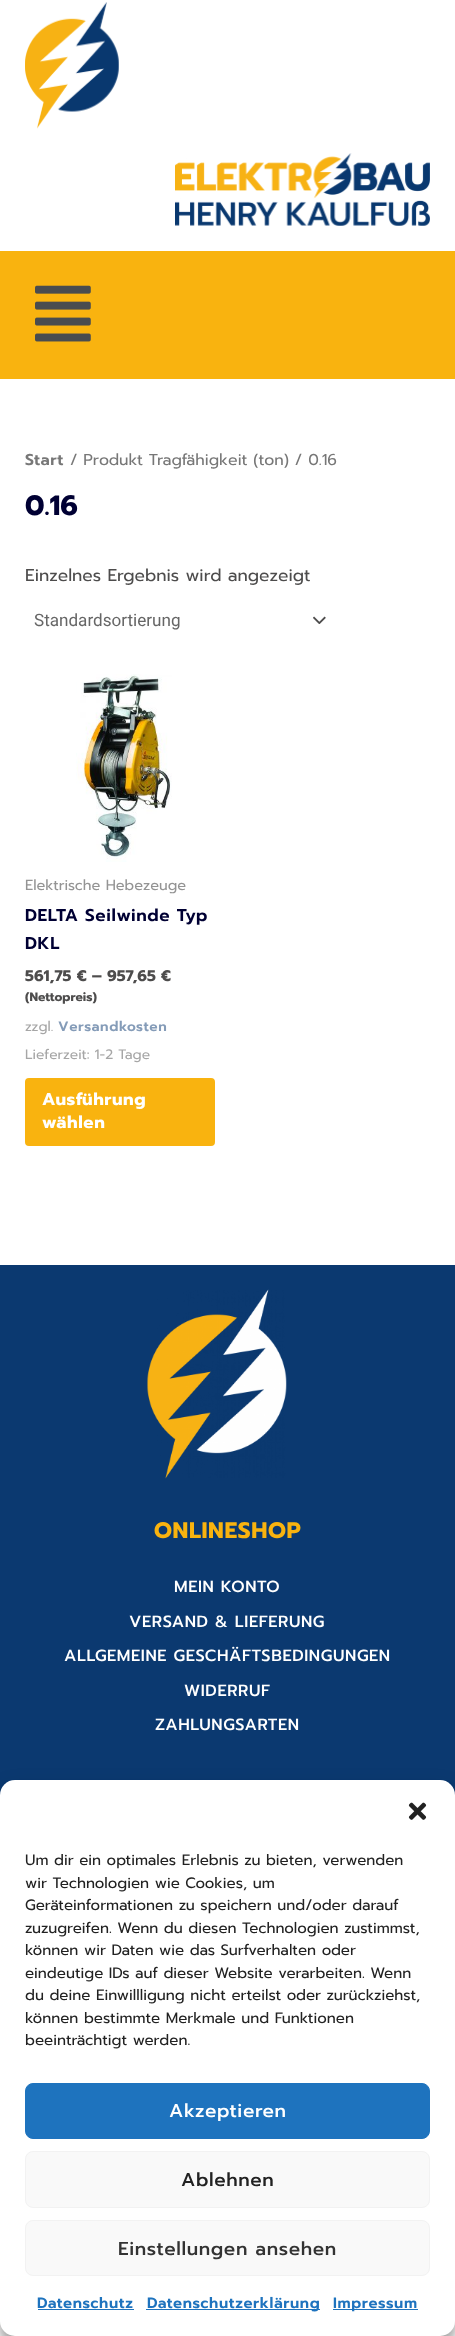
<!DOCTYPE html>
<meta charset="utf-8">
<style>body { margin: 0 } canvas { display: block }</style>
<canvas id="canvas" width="455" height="2336"></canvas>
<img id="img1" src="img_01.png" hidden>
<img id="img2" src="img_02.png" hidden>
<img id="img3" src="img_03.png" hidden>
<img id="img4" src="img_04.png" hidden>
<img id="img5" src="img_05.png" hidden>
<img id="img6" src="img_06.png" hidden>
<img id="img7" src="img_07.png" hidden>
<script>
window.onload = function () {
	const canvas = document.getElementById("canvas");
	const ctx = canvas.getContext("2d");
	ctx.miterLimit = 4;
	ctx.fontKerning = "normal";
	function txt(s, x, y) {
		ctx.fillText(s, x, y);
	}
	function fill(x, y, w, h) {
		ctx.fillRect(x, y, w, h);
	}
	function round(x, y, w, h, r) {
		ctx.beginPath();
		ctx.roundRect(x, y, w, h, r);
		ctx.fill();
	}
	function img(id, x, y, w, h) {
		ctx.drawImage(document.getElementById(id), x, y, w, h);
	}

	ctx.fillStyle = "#FFFFFF";
	fill(0, 0, 455, 2336);
	img("img1", 25, 2, 94, 127);
	img("img2", 175, 153, 255, 73);
	ctx.fillStyle = "#F9B30F";
	fill(0, 251, 455, 128);
	img("img3", 35, 285, 56, 57);
	img("img4", 313, 616, 13, 8);
	img("img5", 76, 674, 96, 188);
	ctx.beginPath();
	ctx.roundRect(27, 1080, 186, 64, 2);
	ctx.fill();
	ctx.strokeStyle = "#F9B30F";
	ctx.lineWidth = 4;
	ctx.stroke();
	ctx.fillStyle = "#0B3970";
	fill(0, 1265, 455, 530);
	img("img6", 147, 1289, 140, 190);
	ctx.fillStyle = "rgba(0, 0, 0, 0.23)";
	ctx.filter = "blur(4px)";
	ctx.beginPath();
	ctx.roundRect(0, 1788, 455, 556, 15);
	ctx.fill();
	ctx.filter = "none";
	ctx.fillStyle = "rgba(0, 0, 0, 0.19)";
	ctx.filter = "blur(12.5px)";
	ctx.beginPath();
	ctx.roundRect(0, 1793, 455, 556, 15);
	ctx.fill();
	ctx.filter = "none";
	ctx.fillStyle = "#FFFFFF";
	round(0, 1780, 455, 556, 15);
	img("img7", 408, 1802, 19, 18);
	ctx.fillStyle = "#1E73BE";
	ctx.beginPath();
	ctx.roundRect(25.5, 2083.5, 404, 55, 7.5);
	ctx.fill();
	ctx.strokeStyle = "#1E73BE";
	ctx.lineWidth = 1;
	ctx.stroke();
	ctx.fillStyle = "#F9F9F9";
	ctx.beginPath();
	ctx.roundRect(25.5, 2151.5, 404, 56, 7.5);
	ctx.fill();
	ctx.strokeStyle = "#F2F2F2";
	ctx.stroke();
	ctx.beginPath();
	ctx.roundRect(25.5, 2220.5, 404, 55, 7.5);
	ctx.fill();
	ctx.stroke();
	ctx.fillStyle = "#1E73BE";
	fill(38, 2309, 96, 1);
	fill(146, 2309, 174, 1);
	fill(333, 2309, 85, 1);
	ctx.letterSpacing = "0.6px";
	ctx.font = "600 15.75px Prompt";
	ctx.fillStyle = "#777777";
	txt("Start", 25, 465);
	ctx.letterSpacing = "0px";
	ctx.font = "15.75px Prompt";
	txt("/ Produkt Tragfähigkeit (ton) / 0.16", 70, 465);
	ctx.font = "bold 28px Prompt";
	ctx.fillStyle = "#000033";
	txt("0.16", 25, 515);
	ctx.font = "17.1px Prompt";
	ctx.fillStyle = "#4D4C4C";
	txt("Einzelnes Ergebnis wird angezeigt", 25, 581);
	ctx.font = "17.1px Roboto";
	ctx.fillStyle = "#666666";
	txt("Standardsortierung", 34, 626);
	ctx.font = "14.5px Prompt";
	ctx.fillStyle = "#949494";
	txt("Elektrische Hebezeuge", 25, 890);
	ctx.letterSpacing = "0.6px";
	ctx.font = "600 17.1px Prompt";
	ctx.fillStyle = "#000033";
	txt("DELTA Seilwinde Typ", 25, 921);
	txt("DKL", 25, 949);
	ctx.letterSpacing = "0px";
	ctx.font = "bold 15.4px Prompt";
	ctx.fillStyle = "#4D4C4C";
	txt("561,75 € – 957,65 €", 25, 981);
	ctx.font = "bold 12.25px Prompt";
	txt("(Nettopreis)", 25, 1001);
	ctx.font = "13.75px Prompt";
	ctx.fillStyle = "#A6A6A6";
	txt("zzgl.", 25, 1031);
	ctx.letterSpacing = "0.6px";
	ctx.font = "600 13.75px Prompt";
	ctx.fillStyle = "#859CB8";
	txt("Versandkosten", 58, 1031);
	ctx.letterSpacing = "0px";
	ctx.font = "13.75px Prompt";
	ctx.fillStyle = "#A6A6A6";
	txt("Lieferzeit: 1-2 Tage", 25, 1059);
	ctx.letterSpacing = "0.6px";
	ctx.font = "bold 17.1px Prompt";
	ctx.fillStyle = "#FFFFFF";
	txt("Ausführung", 42, 1105);
	txt("wählen", 42, 1128);
	ctx.font = "bold 22.5px Prompt";
	ctx.fillStyle = "#F9B30F";
	txt("ONLINESHOP", 154, 1538);
	ctx.font = "500 16.25px Prompt";
	ctx.fillStyle = "#FFFFFF";
	txt("MEIN KONTO", 174, 1592);
	txt("VERSAND & LIEFERUNG", 129, 1627);
	txt("ALLGEMEINE GESCHÄFTSBEDINGUNGEN", 64, 1661);
	txt("WIDERRUF", 184, 1696);
	txt("ZAHLUNGSARTEN", 155, 1730);
	ctx.letterSpacing = "0px";
	ctx.font = "15px Prompt";
	ctx.fillStyle = "#222222";
	txt("Um dir ein optimales Erlebnis zu bieten, verwenden", 25, 1865);
	txt("wir Technologien wie Cookies, um", 25, 1888);
	txt("Geräteinformationen zu speichern und/oder darauf", 25, 1910);
	txt("zuzugreifen. Wenn du diesen Technologien zustimmst,", 25, 1933);
	txt("können wir Daten wie das Surfverhalten oder", 25, 1955);
	txt("eindeutige IDs auf dieser Website verarbeiten. Wenn", 25, 1978);
	txt("du deine Einwillligung nicht erteilst oder zurückziehst,", 25, 2000);
	txt("können bestimmte Merkmale und Funktionen", 25, 2023);
	txt("beeinträchtigt werden.", 25, 2045);
	ctx.letterSpacing = "0.6px";
	ctx.font = "500 18.75px Prompt";
	ctx.fillStyle = "#FFFFFF";
	txt("Akzeptieren", 169, 2117);
	ctx.fillStyle = "#222222";
	txt("Ablehnen", 181, 2186);
	ctx.fillStyle = "#333333";
	txt("Einstellungen ansehen", 118, 2255);
	ctx.font = "600 15px Prompt";
	ctx.fillStyle = "#1E73BE";
	txt("Datenschutz", 37, 2308);
	txt("Datenschutzerklärung", 147, 2308);
	txt("Impressum", 333, 2308);
};
</script>
